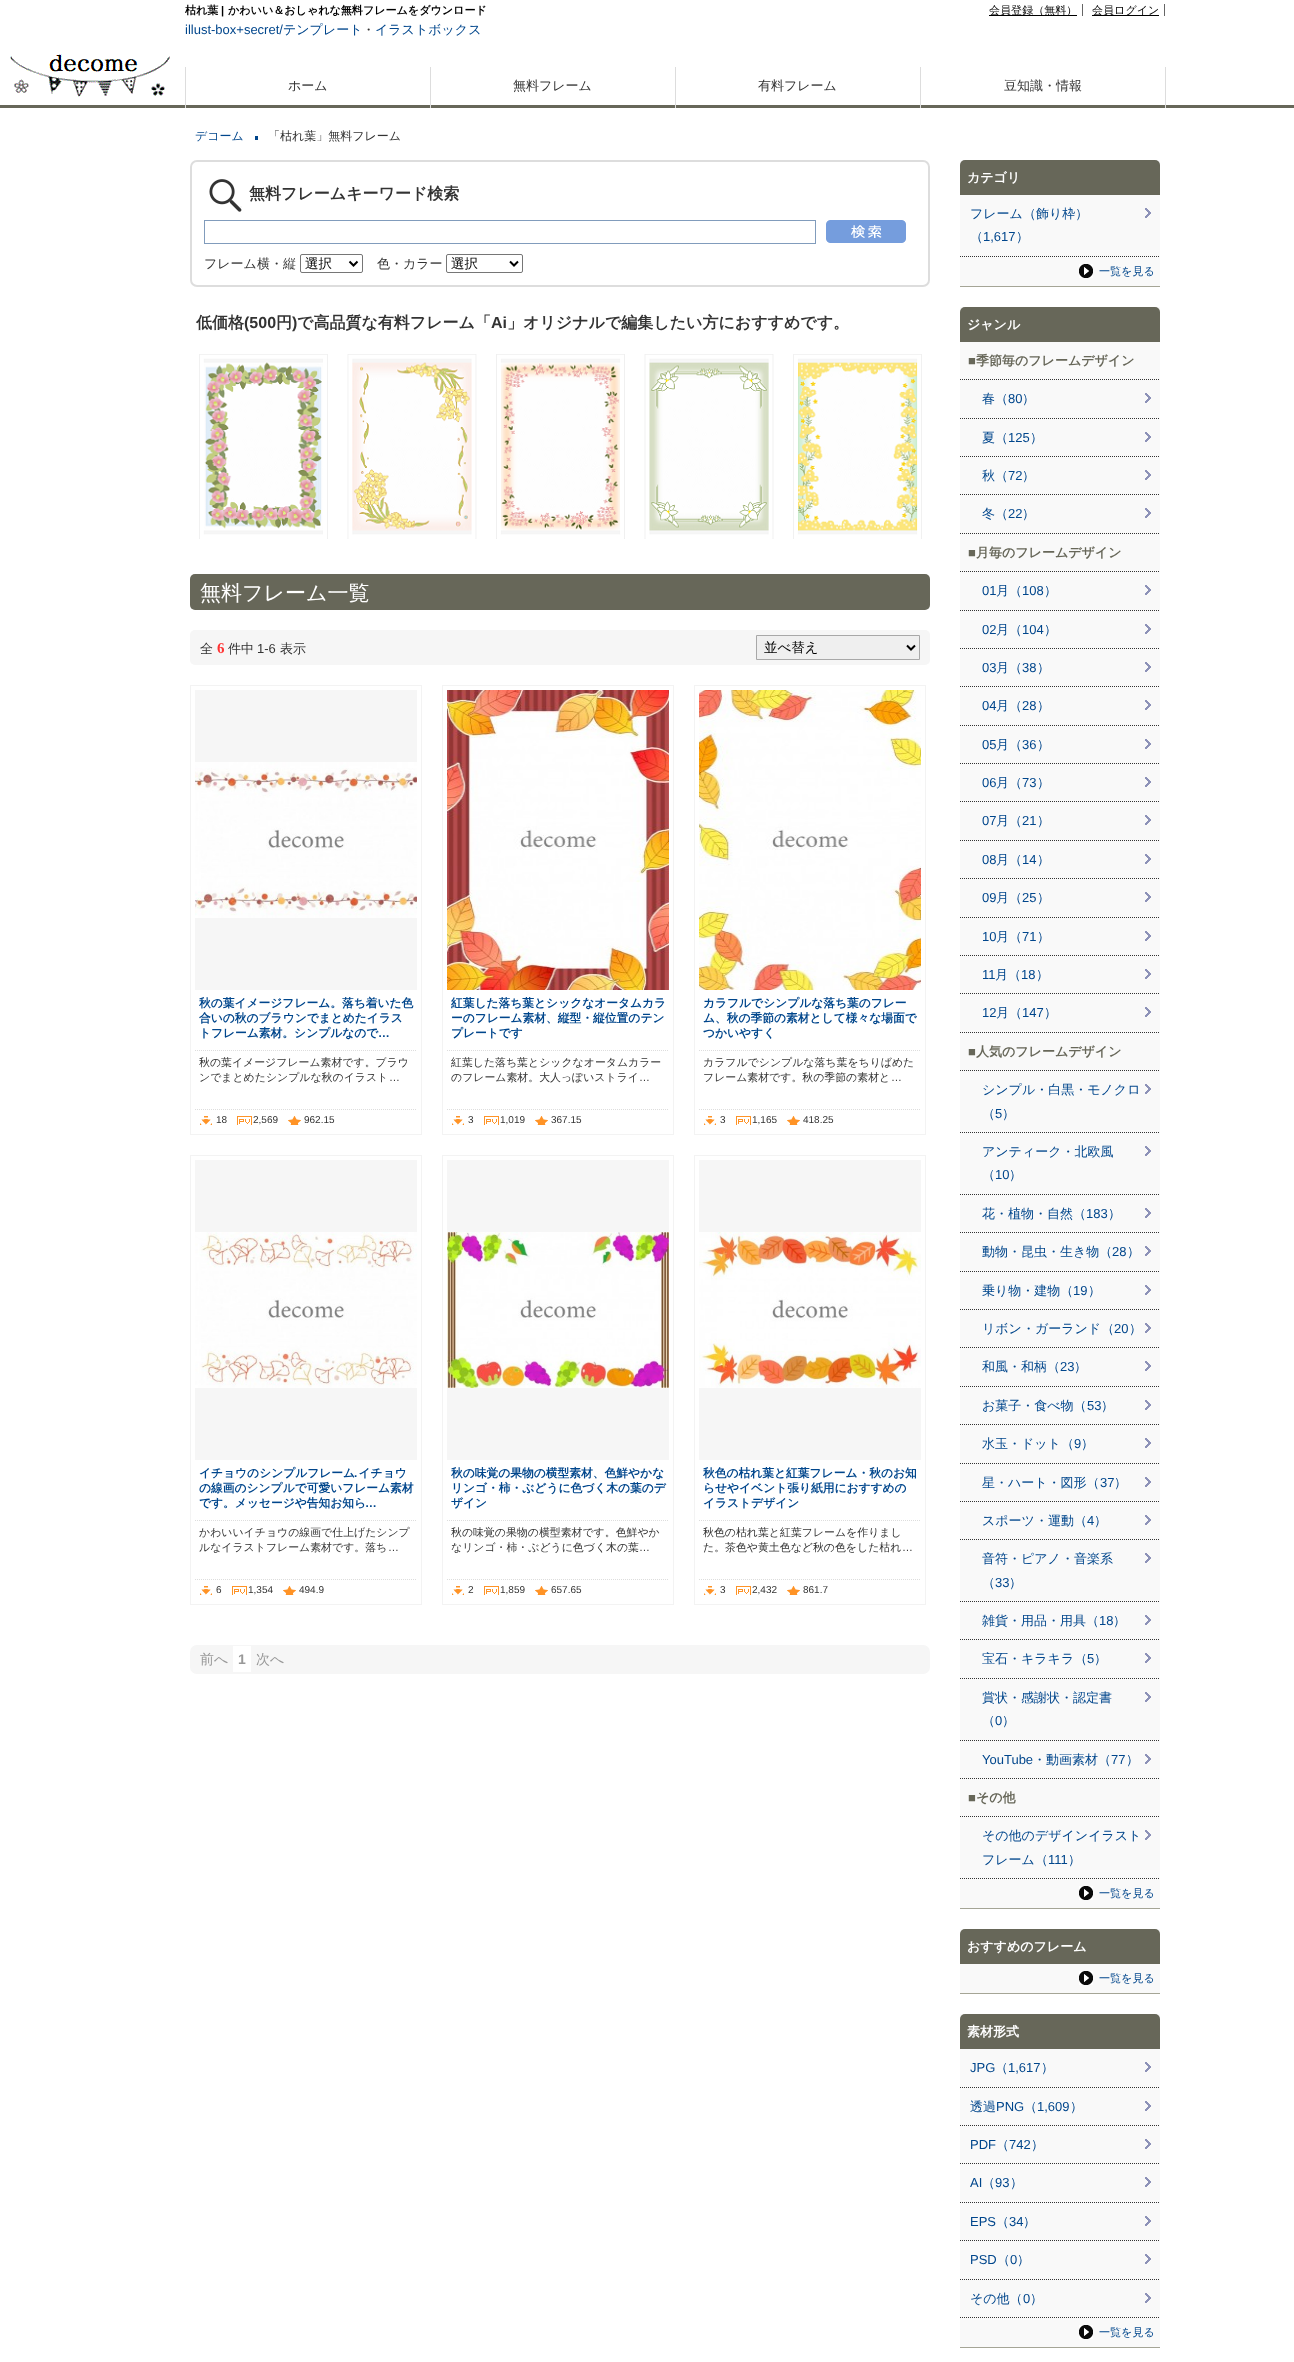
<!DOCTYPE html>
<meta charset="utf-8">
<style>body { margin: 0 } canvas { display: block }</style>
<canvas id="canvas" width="1294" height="2362"></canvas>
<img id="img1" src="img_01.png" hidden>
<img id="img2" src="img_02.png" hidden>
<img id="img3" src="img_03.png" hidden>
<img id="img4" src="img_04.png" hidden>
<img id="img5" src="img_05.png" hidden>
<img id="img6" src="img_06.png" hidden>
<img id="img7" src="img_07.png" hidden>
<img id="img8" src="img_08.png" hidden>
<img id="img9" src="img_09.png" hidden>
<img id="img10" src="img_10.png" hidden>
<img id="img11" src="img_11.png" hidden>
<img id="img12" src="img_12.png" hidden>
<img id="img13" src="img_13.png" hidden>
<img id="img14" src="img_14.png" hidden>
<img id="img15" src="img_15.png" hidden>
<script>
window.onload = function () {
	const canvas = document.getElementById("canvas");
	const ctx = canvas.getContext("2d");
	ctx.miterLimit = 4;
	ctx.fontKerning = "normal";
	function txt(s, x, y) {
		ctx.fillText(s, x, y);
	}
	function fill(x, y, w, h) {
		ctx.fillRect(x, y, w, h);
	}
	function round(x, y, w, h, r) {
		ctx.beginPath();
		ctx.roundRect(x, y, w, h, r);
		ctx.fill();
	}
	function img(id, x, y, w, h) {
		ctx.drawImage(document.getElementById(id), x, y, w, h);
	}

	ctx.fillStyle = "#FFFFFF";
	fill(0, 0, 1294, 2362);
	ctx.fillStyle = "#666666";
	fill(1082, 4, 1, 12);
	ctx.fillStyle = "#000000";
	fill(989, 15, 88, 1);
	ctx.fillStyle = "#666666";
	fill(1164, 4, 1, 12);
	ctx.fillStyle = "#000000";
	fill(1092, 15, 67, 1);
	img("img1", 10, 54, 160, 43);
	ctx.fillStyle = "#676759";
	fill(0, 105, 1294, 3);
	ctx.fillStyle = "#DDDDDD";
	fill(1165, 67, 1, 41);
	fill(185, 67, 1, 41);
	fill(430, 67, 1, 41);
	fill(675, 67, 1, 41);
	fill(920, 67, 1, 41);
	ctx.fillStyle = "#00458A";
	fill(255, 136, 3, 4);
	ctx.beginPath();
	ctx.roundRect(191, 161, 738, 125, 6);
	ctx.strokeStyle = "#DDDDDD";
	ctx.lineWidth = 2;
	ctx.stroke();
	img("img2", 209, 179, 33, 33);
	ctx.strokeStyle = "#819CBC";
	ctx.lineWidth = 1;
	ctx.strokeRect(204.5, 220.5, 611, 23);
	img("img3", 826, 220, 80, 23);
	ctx.beginPath();
	ctx.roundRect(300.5, 254.5, 62, 18, 1.5);
	ctx.strokeStyle = "#767676";
	ctx.stroke();
	ctx.beginPath();
	ctx.moveTo(349.5, 261.5);
	ctx.lineTo(353.5, 265.5);
	ctx.lineTo(357.5, 261.5);
	ctx.strokeStyle = "#000000";
	ctx.lineWidth = 2;
	ctx.stroke();
	ctx.beginPath();
	ctx.roundRect(446.5, 254.5, 76, 18, 1.5);
	ctx.strokeStyle = "#767676";
	ctx.lineWidth = 1;
	ctx.stroke();
	ctx.beginPath();
	ctx.moveTo(510, 261.5);
	ctx.lineTo(514, 265.5);
	ctx.lineTo(518, 261.5);
	ctx.strokeStyle = "#000000";
	ctx.lineWidth = 2;
	ctx.stroke();
	img("img4", 199, 354, 723, 185);
	ctx.fillStyle = "#676759";
	round(190, 574, 740, 36, 5);
	ctx.fillStyle = "#F6F6F6";
	round(190, 630, 740, 35, 5);
	ctx.fillStyle = "#EFEFEF";
	ctx.beginPath();
	ctx.rect(756.5, 635.5, 163, 24);
	ctx.fill();
	ctx.strokeStyle = "#A8A8A8";
	ctx.lineWidth = 1;
	ctx.stroke();
	ctx.beginPath();
	ctx.moveTo(907, 645.5);
	ctx.lineTo(911, 649.5);
	ctx.lineTo(915, 645.5);
	ctx.strokeStyle = "#000000";
	ctx.lineWidth = 2;
	ctx.stroke();
	ctx.strokeStyle = "#F3F3F3";
	ctx.lineWidth = 1;
	ctx.strokeRect(190.5, 685.5, 231, 449);
	ctx.fillStyle = "#F6F6F6";
	fill(195, 690, 222, 300);
	img("img5", 195, 762, 222, 156);
	ctx.beginPath();
	ctx.moveTo(195, 1050.5);
	ctx.lineTo(417, 1050.5);
	ctx.strokeStyle = "#DDDDDD";
	ctx.setLineDash([1, 1]);
	ctx.stroke();
	ctx.beginPath();
	ctx.moveTo(195, 1109.5);
	ctx.lineTo(417, 1109.5);
	ctx.stroke();
	img("img6", 200, 1116, 12, 9);
	img("img7", 237, 1116, 15, 9);
	img("img8", 288, 1116, 13, 9);
	ctx.strokeStyle = "#F3F3F3";
	ctx.setLineDash([]);
	ctx.strokeRect(442.5, 685.5, 231, 449);
	img("img9", 447, 690, 222, 300);
	ctx.beginPath();
	ctx.moveTo(447, 1050.5);
	ctx.lineTo(669, 1050.5);
	ctx.strokeStyle = "#DDDDDD";
	ctx.setLineDash([1, 1]);
	ctx.stroke();
	ctx.beginPath();
	ctx.moveTo(447, 1109.5);
	ctx.lineTo(669, 1109.5);
	ctx.stroke();
	img("img6", 452, 1116, 12, 9);
	img("img7", 484, 1116, 15, 9);
	img("img8", 535, 1116, 13, 9);
	ctx.strokeStyle = "#F3F3F3";
	ctx.setLineDash([]);
	ctx.strokeRect(694.5, 685.5, 231, 449);
	img("img10", 699, 690, 222, 300);
	ctx.beginPath();
	ctx.moveTo(699, 1050.5);
	ctx.lineTo(921, 1050.5);
	ctx.strokeStyle = "#DDDDDD";
	ctx.setLineDash([1, 1]);
	ctx.stroke();
	ctx.beginPath();
	ctx.moveTo(699, 1109.5);
	ctx.lineTo(921, 1109.5);
	ctx.stroke();
	img("img6", 704, 1116, 12, 9);
	img("img7", 736, 1116, 15, 9);
	img("img8", 787, 1116, 13, 9);
	ctx.strokeStyle = "#F3F3F3";
	ctx.setLineDash([]);
	ctx.strokeRect(190.5, 1155.5, 231, 449);
	fill(195, 1160, 222, 300);
	img("img11", 195, 1232, 222, 156);
	ctx.beginPath();
	ctx.moveTo(195, 1520.5);
	ctx.lineTo(417, 1520.5);
	ctx.strokeStyle = "#DDDDDD";
	ctx.setLineDash([1, 1]);
	ctx.stroke();
	ctx.beginPath();
	ctx.moveTo(195, 1579.5);
	ctx.lineTo(417, 1579.5);
	ctx.stroke();
	img("img6", 200, 1586, 12, 9);
	img("img7", 232, 1586, 15, 9);
	img("img8", 283, 1586, 13, 9);
	ctx.strokeStyle = "#F3F3F3";
	ctx.setLineDash([]);
	ctx.strokeRect(442.5, 1155.5, 231, 449);
	fill(447, 1160, 222, 300);
	img("img12", 447, 1232, 222, 156);
	ctx.beginPath();
	ctx.moveTo(447, 1520.5);
	ctx.lineTo(669, 1520.5);
	ctx.strokeStyle = "#DDDDDD";
	ctx.setLineDash([1, 1]);
	ctx.stroke();
	ctx.beginPath();
	ctx.moveTo(447, 1579.5);
	ctx.lineTo(669, 1579.5);
	ctx.stroke();
	img("img6", 452, 1586, 12, 9);
	img("img7", 484, 1586, 15, 9);
	img("img8", 535, 1586, 13, 9);
	ctx.strokeStyle = "#F3F3F3";
	ctx.setLineDash([]);
	ctx.strokeRect(694.5, 1155.5, 231, 449);
	fill(699, 1160, 222, 300);
	img("img13", 699, 1232, 222, 156);
	ctx.beginPath();
	ctx.moveTo(699, 1520.5);
	ctx.lineTo(921, 1520.5);
	ctx.strokeStyle = "#DDDDDD";
	ctx.setLineDash([1, 1]);
	ctx.stroke();
	ctx.beginPath();
	ctx.moveTo(699, 1579.5);
	ctx.lineTo(921, 1579.5);
	ctx.stroke();
	img("img6", 704, 1586, 12, 9);
	img("img7", 736, 1586, 15, 9);
	img("img8", 787, 1586, 13, 9);
	round(190, 1645, 740, 29, 7);
	ctx.fillStyle = "#FFFFFF";
	fill(233, 1646, 18, 26);
	ctx.fillStyle = "#F9F9F9";
	fill(960, 160, 200, 126);
	ctx.fillStyle = "#A5A596";
	fill(960, 286, 200, 1);
	ctx.fillStyle = "#676759";
	ctx.beginPath();
	ctx.roundRect(960, 160, 200, 35, [5, 5, 0, 0]);
	ctx.fill();
	img("img14", 1145, 208, 6, 10);
	ctx.beginPath();
	ctx.moveTo(960, 256.5);
	ctx.lineTo(1160, 256.5);
	ctx.strokeStyle = "#333333";
	ctx.stroke();
	img("img15", 1079, 264, 14, 14);
	ctx.fillStyle = "#F9F9F9";
	fill(960, 307, 200, 1601);
	ctx.fillStyle = "#A5A596";
	fill(960, 1908, 200, 1);
	ctx.fillStyle = "#676759";
	ctx.beginPath();
	ctx.roundRect(960, 307, 200, 35, [5, 5, 0, 0]);
	ctx.fill();
	ctx.beginPath();
	ctx.moveTo(960, 379.5);
	ctx.lineTo(1160, 379.5);
	ctx.stroke();
	img("img14", 1145, 393, 6, 10);
	ctx.beginPath();
	ctx.moveTo(960, 418.5);
	ctx.lineTo(1160, 418.5);
	ctx.stroke();
	img("img14", 1145, 432, 6, 10);
	ctx.beginPath();
	ctx.moveTo(960, 456.5);
	ctx.lineTo(1160, 456.5);
	ctx.stroke();
	img("img14", 1145, 470, 6, 10);
	ctx.beginPath();
	ctx.moveTo(960, 494.5);
	ctx.lineTo(1160, 494.5);
	ctx.stroke();
	img("img14", 1145, 508, 6, 10);
	ctx.beginPath();
	ctx.moveTo(960, 533.5);
	ctx.lineTo(1160, 533.5);
	ctx.stroke();
	ctx.beginPath();
	ctx.moveTo(960, 571.5);
	ctx.lineTo(1160, 571.5);
	ctx.stroke();
	img("img14", 1145, 585, 6, 10);
	ctx.beginPath();
	ctx.moveTo(960, 610.5);
	ctx.lineTo(1160, 610.5);
	ctx.stroke();
	img("img14", 1145, 624, 6, 10);
	ctx.beginPath();
	ctx.moveTo(960, 648.5);
	ctx.lineTo(1160, 648.5);
	ctx.stroke();
	img("img14", 1145, 662, 6, 10);
	ctx.beginPath();
	ctx.moveTo(960, 686.5);
	ctx.lineTo(1160, 686.5);
	ctx.stroke();
	img("img14", 1145, 700, 6, 10);
	ctx.beginPath();
	ctx.moveTo(960, 725.5);
	ctx.lineTo(1160, 725.5);
	ctx.stroke();
	img("img14", 1145, 739, 6, 10);
	ctx.beginPath();
	ctx.moveTo(960, 763.5);
	ctx.lineTo(1160, 763.5);
	ctx.stroke();
	img("img14", 1145, 777, 6, 10);
	ctx.beginPath();
	ctx.moveTo(960, 801.5);
	ctx.lineTo(1160, 801.5);
	ctx.stroke();
	img("img14", 1145, 815, 6, 10);
	ctx.beginPath();
	ctx.moveTo(960, 840.5);
	ctx.lineTo(1160, 840.5);
	ctx.stroke();
	img("img14", 1145, 854, 6, 10);
	ctx.beginPath();
	ctx.moveTo(960, 878.5);
	ctx.lineTo(1160, 878.5);
	ctx.stroke();
	img("img14", 1145, 892, 6, 10);
	ctx.beginPath();
	ctx.moveTo(960, 917.5);
	ctx.lineTo(1160, 917.5);
	ctx.stroke();
	img("img14", 1145, 931, 6, 10);
	ctx.beginPath();
	ctx.moveTo(960, 955.5);
	ctx.lineTo(1160, 955.5);
	ctx.stroke();
	img("img14", 1145, 969, 6, 10);
	ctx.beginPath();
	ctx.moveTo(960, 993.5);
	ctx.lineTo(1160, 993.5);
	ctx.stroke();
	img("img14", 1145, 1007, 6, 10);
	ctx.beginPath();
	ctx.moveTo(960, 1032.5);
	ctx.lineTo(1160, 1032.5);
	ctx.stroke();
	ctx.beginPath();
	ctx.moveTo(960, 1070.5);
	ctx.lineTo(1160, 1070.5);
	ctx.stroke();
	img("img14", 1145, 1084, 6, 10);
	ctx.beginPath();
	ctx.moveTo(960, 1132.5);
	ctx.lineTo(1160, 1132.5);
	ctx.stroke();
	img("img14", 1145, 1146, 6, 10);
	ctx.beginPath();
	ctx.moveTo(960, 1194.5);
	ctx.lineTo(1160, 1194.5);
	ctx.stroke();
	img("img14", 1145, 1208, 6, 10);
	ctx.beginPath();
	ctx.moveTo(960, 1232.5);
	ctx.lineTo(1160, 1232.5);
	ctx.stroke();
	img("img14", 1145, 1246, 6, 10);
	ctx.beginPath();
	ctx.moveTo(960, 1271.5);
	ctx.lineTo(1160, 1271.5);
	ctx.stroke();
	img("img14", 1145, 1285, 6, 10);
	ctx.beginPath();
	ctx.moveTo(960, 1309.5);
	ctx.lineTo(1160, 1309.5);
	ctx.stroke();
	img("img14", 1145, 1323, 6, 10);
	ctx.beginPath();
	ctx.moveTo(960, 1347.5);
	ctx.lineTo(1160, 1347.5);
	ctx.stroke();
	img("img14", 1145, 1361, 6, 10);
	ctx.beginPath();
	ctx.moveTo(960, 1386.5);
	ctx.lineTo(1160, 1386.5);
	ctx.stroke();
	img("img14", 1145, 1400, 6, 10);
	ctx.beginPath();
	ctx.moveTo(960, 1424.5);
	ctx.lineTo(1160, 1424.5);
	ctx.stroke();
	img("img14", 1145, 1438, 6, 10);
	ctx.beginPath();
	ctx.moveTo(960, 1463.5);
	ctx.lineTo(1160, 1463.5);
	ctx.stroke();
	img("img14", 1145, 1477, 6, 10);
	ctx.beginPath();
	ctx.moveTo(960, 1501.5);
	ctx.lineTo(1160, 1501.5);
	ctx.stroke();
	img("img14", 1145, 1515, 6, 10);
	ctx.beginPath();
	ctx.moveTo(960, 1539.5);
	ctx.lineTo(1160, 1539.5);
	ctx.stroke();
	img("img14", 1145, 1553, 6, 10);
	ctx.beginPath();
	ctx.moveTo(960, 1601.5);
	ctx.lineTo(1160, 1601.5);
	ctx.stroke();
	img("img14", 1145, 1615, 6, 10);
	ctx.beginPath();
	ctx.moveTo(960, 1639.5);
	ctx.lineTo(1160, 1639.5);
	ctx.stroke();
	img("img14", 1145, 1653, 6, 10);
	ctx.beginPath();
	ctx.moveTo(960, 1678.5);
	ctx.lineTo(1160, 1678.5);
	ctx.stroke();
	img("img14", 1145, 1692, 6, 10);
	ctx.beginPath();
	ctx.moveTo(960, 1740.5);
	ctx.lineTo(1160, 1740.5);
	ctx.stroke();
	img("img14", 1145, 1754, 6, 10);
	ctx.beginPath();
	ctx.moveTo(960, 1778.5);
	ctx.lineTo(1160, 1778.5);
	ctx.stroke();
	ctx.beginPath();
	ctx.moveTo(960, 1816.5);
	ctx.lineTo(1160, 1816.5);
	ctx.stroke();
	img("img14", 1145, 1830, 6, 10);
	ctx.beginPath();
	ctx.moveTo(960, 1878.5);
	ctx.lineTo(1160, 1878.5);
	ctx.stroke();
	img("img15", 1079, 1886, 14, 14);
	ctx.fillStyle = "#F9F9F9";
	fill(960, 1929, 200, 64);
	ctx.fillStyle = "#A5A596";
	fill(960, 1993, 200, 1);
	ctx.fillStyle = "#676759";
	ctx.beginPath();
	ctx.roundRect(960, 1929, 200, 35, [5, 5, 0, 0]);
	ctx.fill();
	img("img15", 1079, 1971, 14, 14);
	ctx.fillStyle = "#F9F9F9";
	fill(960, 2014, 200, 333);
	ctx.fillStyle = "#A5A596";
	fill(960, 2347, 200, 1);
	ctx.fillStyle = "#676759";
	ctx.beginPath();
	ctx.roundRect(960, 2014, 200, 35, [5, 5, 0, 0]);
	ctx.fill();
	img("img14", 1145, 2062, 6, 10);
	ctx.beginPath();
	ctx.moveTo(960, 2087.5);
	ctx.lineTo(1160, 2087.5);
	ctx.stroke();
	img("img14", 1145, 2101, 6, 10);
	ctx.beginPath();
	ctx.moveTo(960, 2125.5);
	ctx.lineTo(1160, 2125.5);
	ctx.stroke();
	img("img14", 1145, 2139, 6, 10);
	ctx.beginPath();
	ctx.moveTo(960, 2163.5);
	ctx.lineTo(1160, 2163.5);
	ctx.stroke();
	img("img14", 1145, 2177, 6, 10);
	ctx.beginPath();
	ctx.moveTo(960, 2202.5);
	ctx.lineTo(1160, 2202.5);
	ctx.stroke();
	img("img14", 1145, 2216, 6, 10);
	ctx.beginPath();
	ctx.moveTo(960, 2240.5);
	ctx.lineTo(1160, 2240.5);
	ctx.stroke();
	img("img14", 1145, 2254, 6, 10);
	ctx.beginPath();
	ctx.moveTo(960, 2279.5);
	ctx.lineTo(1160, 2279.5);
	ctx.stroke();
	img("img14", 1145, 2293, 6, 10);
	ctx.beginPath();
	ctx.moveTo(960, 2317.5);
	ctx.lineTo(1160, 2317.5);
	ctx.stroke();
	img("img15", 1079, 2325, 14, 14);
	ctx.font = "bold 11.05px WenQuanYi Zen Hei";
	ctx.fillStyle = "#000000";
	txt("枯れ葉", 185, 14);
	ctx.font = "bold 11.05px Liberation Sans";
	txt("|", 221, 14);
	ctx.font = "bold 11.05px WenQuanYi Zen Hei";
	txt("かわいい＆おしゃれな無料フレームをダウンロード", 228, 14);
	ctx.font = "500 11.05px WenQuanYi Zen Hei";
	txt("会員登録（無料）", 989, 14);
	txt("会員ログイン", 1092, 14);
	ctx.font = "13px Liberation Sans";
	ctx.fillStyle = "#00468C";
	txt("illust-box+secret/", 185, 34);
	ctx.font = "500 13px WenQuanYi Zen Hei";
	txt("テンプレート", 283, 34);
	ctx.fillStyle = "#333333";
	txt("・", 362, 34);
	ctx.fillStyle = "#00468C";
	txt("イラストボックス", 375, 34);
	ctx.fillStyle = "#333333";
	txt("ホーム", 288, 90);
	txt("無料フレーム", 513, 90);
	txt("有料フレーム", 758, 90);
	txt("豆知識・情報", 1004, 90);
	ctx.font = "500 12px WenQuanYi Zen Hei";
	ctx.fillStyle = "#00468C";
	txt("デコーム", 195, 140);
	ctx.fillStyle = "#333333";
	txt("「枯れ葉」無料フレーム", 268, 140);
	ctx.font = "bold 16px WenQuanYi Zen Hei";
	txt("無料フレームキーワード検索", 249, 199);
	ctx.font = "500 13px WenQuanYi Zen Hei";
	txt("フレーム横・縦", 204, 268);
	ctx.font = "500 13.5px WenQuanYi Zen Hei";
	ctx.fillStyle = "#000000";
	txt("選択", 305, 268);
	ctx.font = "500 13px WenQuanYi Zen Hei";
	ctx.fillStyle = "#333333";
	txt("色・カラー", 377, 268);
	ctx.font = "500 13.5px WenQuanYi Zen Hei";
	ctx.fillStyle = "#000000";
	txt("選択", 451, 268);
	ctx.font = "bold 16px WenQuanYi Zen Hei";
	ctx.fillStyle = "#333333";
	txt("低価格", 196, 328);
	ctx.font = "bold 16px Liberation Sans";
	txt("(500", 244, 328);
	ctx.font = "bold 16px WenQuanYi Zen Hei";
	txt("円", 276, 328);
	ctx.font = "bold 16px Liberation Sans";
	txt(")", 292, 328);
	ctx.font = "bold 16px WenQuanYi Zen Hei";
	txt("で高品質な有料フレーム「", 297, 328);
	ctx.font = "bold 16px Liberation Sans";
	txt("Ai", 491, 328);
	ctx.font = "bold 16px WenQuanYi Zen Hei";
	txt("」オリジナルで編集したい方におすすめです。", 507, 328);
	ctx.font = "500 21px WenQuanYi Zen Hei";
	ctx.fillStyle = "#FFFFFF";
	txt("無料フレーム一覧", 200, 600);
	ctx.font = "500 13px WenQuanYi Zen Hei";
	ctx.fillStyle = "#333333";
	txt("全", 200, 653);
	ctx.font = "bold 15px Liberation Serif";
	ctx.fillStyle = "#FF3333";
	txt("6", 217, 653);
	ctx.font = "500 13px WenQuanYi Zen Hei";
	ctx.fillStyle = "#333333";
	txt("件中", 228, 653);
	ctx.font = "13px Liberation Sans";
	txt("1-6", 257, 653);
	ctx.font = "500 13px WenQuanYi Zen Hei";
	txt("表示", 280, 653);
	ctx.font = "500 13.5px WenQuanYi Zen Hei";
	ctx.fillStyle = "#000000";
	txt("並べ替え", 764, 652);
	ctx.font = "bold 11.75px WenQuanYi Zen Hei";
	ctx.fillStyle = "#00468C";
	txt("秋の葉イメージフレーム。落ち着いた色", 199, 1007);
	txt("合いの秋のブラウンでまとめたイラス", 199, 1022);
	txt("トフレーム素材。シンプルなので", 199, 1037);
	ctx.font = "bold 11.75px Liberation Sans";
	txt("…", 378, 1037);
	ctx.font = "500 10.9px WenQuanYi Zen Hei";
	ctx.fillStyle = "#333333";
	txt("秋の葉イメージフレーム素材です。ブラウ", 199, 1066);
	txt("ンでまとめたシンプルな秋のイラスト", 199, 1081);
	ctx.font = "10.9px Liberation Sans";
	txt("…", 389, 1081);
	ctx.font = "10px Liberation Sans";
	txt("18", 216, 1123);
	txt("2,569", 253, 1123);
	txt("962.15", 304, 1123);
	ctx.font = "bold 11.75px WenQuanYi Zen Hei";
	ctx.fillStyle = "#00468C";
	txt("紅葉した落ち葉とシックなオータムカラ", 451, 1007);
	txt("ーのフレーム素材、縦型・縦位置のテン", 451, 1022);
	txt("プレートです", 451, 1037);
	ctx.font = "500 10.9px WenQuanYi Zen Hei";
	ctx.fillStyle = "#333333";
	txt("紅葉した落ち葉とシックなオータムカラー", 451, 1066);
	txt("のフレーム素材。大人っぽいストライ", 451, 1081);
	ctx.font = "10.9px Liberation Sans";
	txt("…", 639, 1081);
	ctx.font = "10px Liberation Sans";
	txt("3", 468, 1123);
	txt("1,019", 500, 1123);
	txt("367.15", 551, 1123);
	ctx.font = "bold 11.75px WenQuanYi Zen Hei";
	ctx.fillStyle = "#00468C";
	txt("カラフルでシンプルな落ち葉のフレー", 703, 1007);
	txt("ム、秋の季節の素材として様々な場面で", 703, 1022);
	txt("つかいやすく", 703, 1037);
	ctx.font = "500 10.9px WenQuanYi Zen Hei";
	ctx.fillStyle = "#333333";
	txt("カラフルでシンプルな落ち葉をちりばめた", 703, 1066);
	txt("フレーム素材です。秋の季節の素材と", 703, 1081);
	ctx.font = "10.9px Liberation Sans";
	txt("…", 891, 1081);
	ctx.font = "10px Liberation Sans";
	txt("3", 720, 1123);
	txt("1,165", 752, 1123);
	txt("418.25", 803, 1123);
	ctx.font = "bold 11.75px WenQuanYi Zen Hei";
	ctx.fillStyle = "#00468C";
	txt("イチョウのシンプルフレーム イチョウ", 199, 1477);
	ctx.font = "bold 11.75px Liberation Sans";
	txt(".", 354, 1477);
	ctx.font = "bold 11.75px WenQuanYi Zen Hei";
	txt("の線画のシンプルで可愛いフレーム素材", 199, 1492);
	txt("です。メッセージや告知お知ら", 199, 1507);
	ctx.font = "bold 11.75px Liberation Sans";
	txt("…", 365, 1507);
	ctx.font = "500 10.9px WenQuanYi Zen Hei";
	ctx.fillStyle = "#333333";
	txt("かわいいイチョウの線画で仕上げたシンプ", 199, 1536);
	txt("ルなイラストフレーム素材です。落ち", 199, 1551);
	ctx.font = "10.9px Liberation Sans";
	txt("…", 388, 1551);
	ctx.font = "10px Liberation Sans";
	txt("6", 216, 1593);
	txt("1,354", 248, 1593);
	txt("494.9", 299, 1593);
	ctx.font = "bold 11.75px WenQuanYi Zen Hei";
	ctx.fillStyle = "#00468C";
	txt("秋の味覚の果物の横型素材、色鮮やかな", 451, 1477);
	txt("リンゴ・柿・ぶどうに色づく木の葉のデ", 451, 1492);
	txt("ザイン", 451, 1507);
	ctx.font = "500 10.9px WenQuanYi Zen Hei";
	ctx.fillStyle = "#333333";
	txt("秋の味覚の果物の横型素材です。色鮮やか", 451, 1536);
	txt("なリンゴ・柿・ぶどうに色づく木の葉", 451, 1551);
	ctx.font = "10.9px Liberation Sans";
	txt("…", 639, 1551);
	ctx.font = "10px Liberation Sans";
	txt("2", 468, 1593);
	txt("1,859", 500, 1593);
	txt("657.65", 551, 1593);
	ctx.font = "bold 11.75px WenQuanYi Zen Hei";
	ctx.fillStyle = "#00468C";
	txt("秋色の枯れ葉と紅葉フレーム・秋のお知", 703, 1477);
	txt("らせやイベント張り紙用におすすめの", 703, 1492);
	txt("イラストデザイン", 703, 1507);
	ctx.font = "500 10.9px WenQuanYi Zen Hei";
	ctx.fillStyle = "#333333";
	txt("秋色の枯れ葉と紅葉フレームを作りまし", 703, 1536);
	txt("た。茶色や黄土色など秋の色をした枯れ", 703, 1551);
	ctx.font = "10.9px Liberation Sans";
	txt("…", 902, 1551);
	ctx.font = "10px Liberation Sans";
	txt("3", 720, 1593);
	txt("2,432", 752, 1593);
	txt("861.7", 803, 1593);
	ctx.font = "500 14px WenQuanYi Zen Hei";
	ctx.fillStyle = "#999999";
	txt("前へ", 200, 1664);
	ctx.font = "bold 14px Liberation Sans";
	txt("1", 238, 1664);
	ctx.font = "500 14px WenQuanYi Zen Hei";
	txt("次へ", 256, 1664);
	ctx.font = "bold 13px WenQuanYi Zen Hei";
	ctx.fillStyle = "#FFFFFF";
	txt("カテゴリ", 967, 182);
	ctx.font = "500 13px WenQuanYi Zen Hei";
	ctx.fillStyle = "#00468C";
	txt("フレーム（飾り枠）", 970, 218);
	txt("（", 970, 241);
	ctx.font = "13px Liberation Sans";
	txt("1,617", 983, 241);
	ctx.font = "500 13px WenQuanYi Zen Hei";
	txt("）", 1016, 241);
	ctx.font = "500 11.05px WenQuanYi Zen Hei";
	txt("一覧を見る", 1099, 275);
	ctx.font = "bold 13px WenQuanYi Zen Hei";
	ctx.fillStyle = "#FFFFFF";
	txt("ジャンル", 967, 329);
	ctx.font = "bold 13px Liberation Sans";
	ctx.fillStyle = "#676759";
	txt("■", 968, 365);
	ctx.font = "bold 13px WenQuanYi Zen Hei";
	txt("季節毎のフレームデザイン", 976, 365);
	ctx.font = "500 13px WenQuanYi Zen Hei";
	ctx.fillStyle = "#00468C";
	txt("春（", 982, 403);
	ctx.font = "13px Liberation Sans";
	txt("80", 1008, 403);
	ctx.font = "500 13px WenQuanYi Zen Hei";
	txt("）", 1022, 403);
	txt("夏（", 982, 442);
	ctx.font = "13px Liberation Sans";
	txt("125", 1008, 442);
	ctx.font = "500 13px WenQuanYi Zen Hei";
	txt("）", 1030, 442);
	txt("秋（", 982, 480);
	ctx.font = "13px Liberation Sans";
	txt("72", 1008, 480);
	ctx.font = "500 13px WenQuanYi Zen Hei";
	txt("）", 1022, 480);
	txt("冬（", 982, 518);
	ctx.font = "13px Liberation Sans";
	txt("22", 1008, 518);
	ctx.font = "500 13px WenQuanYi Zen Hei";
	txt("）", 1022, 518);
	ctx.font = "bold 13px Liberation Sans";
	ctx.fillStyle = "#676759";
	txt("■", 968, 557);
	ctx.font = "bold 13px WenQuanYi Zen Hei";
	txt("月毎のフレームデザイン", 976, 557);
	ctx.font = "13px Liberation Sans";
	ctx.fillStyle = "#00468C";
	txt("01", 982, 595);
	ctx.font = "500 13px WenQuanYi Zen Hei";
	txt("月（", 996, 595);
	ctx.font = "13px Liberation Sans";
	txt("108", 1022, 595);
	ctx.font = "500 13px WenQuanYi Zen Hei";
	txt("）", 1044, 595);
	ctx.font = "13px Liberation Sans";
	txt("02", 982, 634);
	ctx.font = "500 13px WenQuanYi Zen Hei";
	txt("月（", 996, 634);
	ctx.font = "13px Liberation Sans";
	txt("104", 1022, 634);
	ctx.font = "500 13px WenQuanYi Zen Hei";
	txt("）", 1044, 634);
	ctx.font = "13px Liberation Sans";
	txt("03", 982, 672);
	ctx.font = "500 13px WenQuanYi Zen Hei";
	txt("月（", 996, 672);
	ctx.font = "13px Liberation Sans";
	txt("38", 1022, 672);
	ctx.font = "500 13px WenQuanYi Zen Hei";
	txt("）", 1037, 672);
	ctx.font = "13px Liberation Sans";
	txt("04", 982, 710);
	ctx.font = "500 13px WenQuanYi Zen Hei";
	txt("月（", 996, 710);
	ctx.font = "13px Liberation Sans";
	txt("28", 1022, 710);
	ctx.font = "500 13px WenQuanYi Zen Hei";
	txt("）", 1037, 710);
	ctx.font = "13px Liberation Sans";
	txt("05", 982, 749);
	ctx.font = "500 13px WenQuanYi Zen Hei";
	txt("月（", 996, 749);
	ctx.font = "13px Liberation Sans";
	txt("36", 1022, 749);
	ctx.font = "500 13px WenQuanYi Zen Hei";
	txt("）", 1037, 749);
	ctx.font = "13px Liberation Sans";
	txt("06", 982, 787);
	ctx.font = "500 13px WenQuanYi Zen Hei";
	txt("月（", 996, 787);
	ctx.font = "13px Liberation Sans";
	txt("73", 1022, 787);
	ctx.font = "500 13px WenQuanYi Zen Hei";
	txt("）", 1037, 787);
	ctx.font = "13px Liberation Sans";
	txt("07", 982, 825);
	ctx.font = "500 13px WenQuanYi Zen Hei";
	txt("月（", 996, 825);
	ctx.font = "13px Liberation Sans";
	txt("21", 1022, 825);
	ctx.font = "500 13px WenQuanYi Zen Hei";
	txt("）", 1037, 825);
	ctx.font = "13px Liberation Sans";
	txt("08", 982, 864);
	ctx.font = "500 13px WenQuanYi Zen Hei";
	txt("月（", 996, 864);
	ctx.font = "13px Liberation Sans";
	txt("14", 1022, 864);
	ctx.font = "500 13px WenQuanYi Zen Hei";
	txt("）", 1037, 864);
	ctx.font = "13px Liberation Sans";
	txt("09", 982, 902);
	ctx.font = "500 13px WenQuanYi Zen Hei";
	txt("月（", 996, 902);
	ctx.font = "13px Liberation Sans";
	txt("25", 1022, 902);
	ctx.font = "500 13px WenQuanYi Zen Hei";
	txt("）", 1037, 902);
	ctx.font = "13px Liberation Sans";
	txt("10", 982, 941);
	ctx.font = "500 13px WenQuanYi Zen Hei";
	txt("月（", 996, 941);
	ctx.font = "13px Liberation Sans";
	txt("71", 1022, 941);
	ctx.font = "500 13px WenQuanYi Zen Hei";
	txt("）", 1037, 941);
	ctx.font = "13px Liberation Sans";
	txt("11", 982, 979);
	ctx.font = "500 13px WenQuanYi Zen Hei";
	txt("月（", 995, 979);
	ctx.font = "13px Liberation Sans";
	txt("18", 1021, 979);
	ctx.font = "500 13px WenQuanYi Zen Hei";
	txt("）", 1036, 979);
	ctx.font = "13px Liberation Sans";
	txt("12", 982, 1017);
	ctx.font = "500 13px WenQuanYi Zen Hei";
	txt("月（", 996, 1017);
	ctx.font = "13px Liberation Sans";
	txt("147", 1022, 1017);
	ctx.font = "500 13px WenQuanYi Zen Hei";
	txt("）", 1044, 1017);
	ctx.font = "bold 13px Liberation Sans";
	ctx.fillStyle = "#676759";
	txt("■", 968, 1056);
	ctx.font = "bold 13px WenQuanYi Zen Hei";
	txt("人気のフレームデザイン", 976, 1056);
	ctx.font = "500 13px WenQuanYi Zen Hei";
	ctx.fillStyle = "#00468C";
	txt("シンプル・白黒・モノクロ", 982, 1094);
	txt("（", 982, 1118);
	ctx.font = "13px Liberation Sans";
	txt("5", 995, 1118);
	ctx.font = "500 13px WenQuanYi Zen Hei";
	txt("）", 1002, 1118);
	txt("アンティーク・北欧風", 982, 1156);
	txt("（", 982, 1179);
	ctx.font = "13px Liberation Sans";
	txt("10", 995, 1179);
	ctx.font = "500 13px WenQuanYi Zen Hei";
	txt("）", 1009, 1179);
	txt("花・植物・自然（", 982, 1218);
	ctx.font = "13px Liberation Sans";
	txt("183", 1086, 1218);
	ctx.font = "500 13px WenQuanYi Zen Hei";
	txt("）", 1108, 1218);
	txt("動物・昆虫・生き物（", 982, 1256);
	ctx.font = "13px Liberation Sans";
	txt("28", 1112, 1256);
	ctx.font = "500 13px WenQuanYi Zen Hei";
	txt("）", 1127, 1256);
	txt("乗り物・建物（", 982, 1295);
	ctx.font = "13px Liberation Sans";
	txt("19", 1073, 1295);
	ctx.font = "500 13px WenQuanYi Zen Hei";
	txt("）", 1088, 1295);
	txt("リボン・ガーランド（", 982, 1333);
	ctx.font = "13px Liberation Sans";
	txt("20", 1114, 1333);
	ctx.font = "500 13px WenQuanYi Zen Hei";
	txt("）", 1129, 1333);
	txt("和風・和柄（", 982, 1371);
	ctx.font = "13px Liberation Sans";
	txt("23", 1060, 1371);
	ctx.font = "500 13px WenQuanYi Zen Hei";
	txt("）", 1074, 1371);
	txt("お菓子・食べ物（", 982, 1410);
	ctx.font = "13px Liberation Sans";
	txt("53", 1087, 1410);
	ctx.font = "500 13px WenQuanYi Zen Hei";
	txt("）", 1101, 1410);
	txt("水玉・ドット（", 982, 1448);
	ctx.font = "13px Liberation Sans";
	txt("9", 1074, 1448);
	ctx.font = "500 13px WenQuanYi Zen Hei";
	txt("）", 1081, 1448);
	txt("星・ハート・図形（", 982, 1487);
	ctx.font = "13px Liberation Sans";
	txt("37", 1100, 1487);
	ctx.font = "500 13px WenQuanYi Zen Hei";
	txt("）", 1114, 1487);
	txt("スポーツ・運動（", 982, 1525);
	ctx.font = "13px Liberation Sans";
	txt("4", 1087, 1525);
	ctx.font = "500 13px WenQuanYi Zen Hei";
	txt("）", 1094, 1525);
	txt("音符・ピアノ・音楽系", 982, 1563);
	txt("（", 982, 1587);
	ctx.font = "13px Liberation Sans";
	txt("33", 995, 1587);
	ctx.font = "500 13px WenQuanYi Zen Hei";
	txt("）", 1009, 1587);
	txt("雑貨・用品・用具（", 982, 1625);
	ctx.font = "13px Liberation Sans";
	txt("18", 1099, 1625);
	ctx.font = "500 13px WenQuanYi Zen Hei";
	txt("）", 1113, 1625);
	txt("宝石・キラキラ（", 982, 1663);
	ctx.font = "13px Liberation Sans";
	txt("5", 1087, 1663);
	ctx.font = "500 13px WenQuanYi Zen Hei";
	txt("）", 1094, 1663);
	txt("賞状・感謝状・認定書", 982, 1702);
	txt("（", 982, 1725);
	ctx.font = "13px Liberation Sans";
	txt("0", 995, 1725);
	ctx.font = "500 13px WenQuanYi Zen Hei";
	txt("）", 1002, 1725);
	ctx.font = "13px Liberation Sans";
	txt("YouTube", 982, 1764);
	ctx.font = "500 13px WenQuanYi Zen Hei";
	txt("・動画素材（", 1033, 1764);
	ctx.font = "13px Liberation Sans";
	txt("77", 1111, 1764);
	ctx.font = "500 13px WenQuanYi Zen Hei";
	txt("）", 1126, 1764);
	ctx.font = "bold 13px Liberation Sans";
	ctx.fillStyle = "#676759";
	txt("■", 968, 1802);
	ctx.font = "bold 13px WenQuanYi Zen Hei";
	txt("その他", 976, 1802);
	ctx.font = "500 13px WenQuanYi Zen Hei";
	ctx.fillStyle = "#00468C";
	txt("その他のデザインイラスト", 982, 1840);
	txt("フレーム（", 982, 1864);
	ctx.font = "13px Liberation Sans";
	txt("111", 1048, 1864);
	ctx.font = "500 13px WenQuanYi Zen Hei";
	txt("）", 1068, 1864);
	ctx.font = "500 11.05px WenQuanYi Zen Hei";
	txt("一覧を見る", 1099, 1897);
	ctx.font = "bold 13px WenQuanYi Zen Hei";
	ctx.fillStyle = "#FFFFFF";
	txt("おすすめのフレーム", 967, 1951);
	ctx.font = "500 11.05px WenQuanYi Zen Hei";
	ctx.fillStyle = "#00468C";
	txt("一覧を見る", 1099, 1982);
	ctx.font = "bold 13px WenQuanYi Zen Hei";
	ctx.fillStyle = "#FFFFFF";
	txt("素材形式", 967, 2036);
	ctx.font = "13px Liberation Sans";
	ctx.fillStyle = "#00468C";
	txt("JPG", 970, 2072);
	ctx.font = "500 13px WenQuanYi Zen Hei";
	txt("（", 995, 2072);
	ctx.font = "13px Liberation Sans";
	txt("1,617", 1008, 2072);
	ctx.font = "500 13px WenQuanYi Zen Hei";
	txt("）", 1041, 2072);
	txt("透過", 970, 2111);
	ctx.font = "13px Liberation Sans";
	txt("PNG", 996, 2111);
	ctx.font = "500 13px WenQuanYi Zen Hei";
	txt("（", 1024, 2111);
	ctx.font = "13px Liberation Sans";
	txt("1,609", 1037, 2111);
	ctx.font = "500 13px WenQuanYi Zen Hei";
	txt("）", 1070, 2111);
	ctx.font = "13px Liberation Sans";
	txt("PDF", 970, 2149);
	ctx.font = "500 13px WenQuanYi Zen Hei";
	txt("（", 996, 2149);
	ctx.font = "13px Liberation Sans";
	txt("742", 1009, 2149);
	ctx.font = "500 13px WenQuanYi Zen Hei";
	txt("）", 1031, 2149);
	ctx.font = "13px Liberation Sans";
	txt("AI", 970, 2187);
	ctx.font = "500 13px WenQuanYi Zen Hei";
	txt("（", 982, 2187);
	ctx.font = "13px Liberation Sans";
	txt("93", 995, 2187);
	ctx.font = "500 13px WenQuanYi Zen Hei";
	txt("）", 1010, 2187);
	ctx.font = "13px Liberation Sans";
	txt("EPS", 970, 2226);
	ctx.font = "500 13px WenQuanYi Zen Hei";
	txt("（", 996, 2226);
	ctx.font = "13px Liberation Sans";
	txt("34", 1009, 2226);
	ctx.font = "500 13px WenQuanYi Zen Hei";
	txt("）", 1023, 2226);
	ctx.font = "13px Liberation Sans";
	txt("PSD", 970, 2264);
	ctx.font = "500 13px WenQuanYi Zen Hei";
	txt("（", 997, 2264);
	ctx.font = "13px Liberation Sans";
	txt("0", 1010, 2264);
	ctx.font = "500 13px WenQuanYi Zen Hei";
	txt("）", 1017, 2264);
	txt("その他（", 970, 2303);
	ctx.font = "13px Liberation Sans";
	txt("0", 1023, 2303);
	ctx.font = "500 13px WenQuanYi Zen Hei";
	txt("）", 1030, 2303);
	ctx.font = "500 11.05px WenQuanYi Zen Hei";
	txt("一覧を見る", 1099, 2336);
};
</script>
